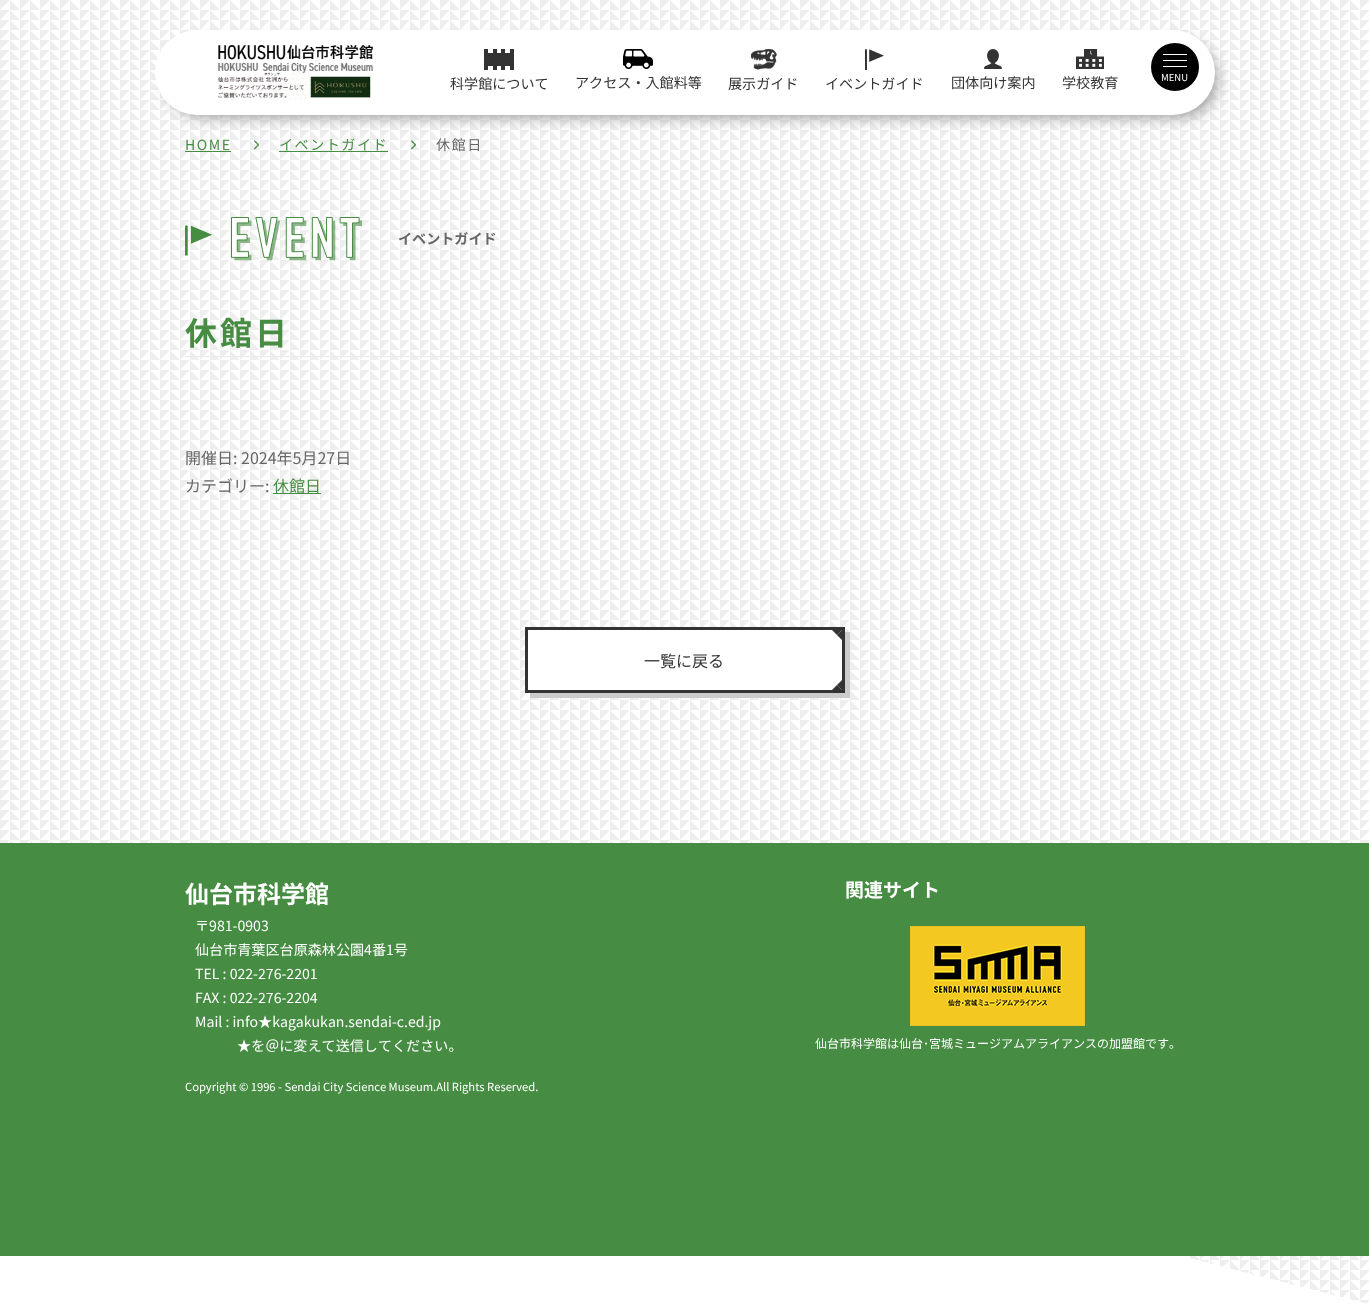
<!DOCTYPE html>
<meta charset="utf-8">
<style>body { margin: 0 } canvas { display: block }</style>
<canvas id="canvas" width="1369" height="1304"></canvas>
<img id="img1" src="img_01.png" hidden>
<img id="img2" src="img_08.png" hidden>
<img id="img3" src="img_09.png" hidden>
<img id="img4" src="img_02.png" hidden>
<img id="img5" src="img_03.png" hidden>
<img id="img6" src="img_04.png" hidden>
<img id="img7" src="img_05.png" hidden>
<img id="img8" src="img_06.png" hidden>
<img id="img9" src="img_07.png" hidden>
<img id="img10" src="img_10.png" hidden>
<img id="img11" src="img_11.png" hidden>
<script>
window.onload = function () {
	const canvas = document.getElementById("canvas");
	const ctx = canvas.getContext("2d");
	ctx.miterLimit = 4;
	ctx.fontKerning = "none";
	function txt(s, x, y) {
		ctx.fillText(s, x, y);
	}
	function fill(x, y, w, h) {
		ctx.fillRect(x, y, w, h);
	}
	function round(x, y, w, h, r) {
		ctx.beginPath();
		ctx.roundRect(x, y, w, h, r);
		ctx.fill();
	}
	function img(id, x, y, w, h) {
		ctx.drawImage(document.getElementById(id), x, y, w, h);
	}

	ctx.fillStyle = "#FFFFFF";
	fill(0, 0, 1369, 1304);
	img("img1", 0, 0, 1369, 1304);
	img("img2", 254, 140, 5, 10);
	img("img3", 411, 140, 5, 10);
	ctx.fillStyle = "#999999";
	ctx.filter = "blur(7.5px)";
	ctx.beginPath();
	ctx.roundRect(167, 42, 1050, 75, 37.5);
	ctx.fill();
	ctx.filter = "none";
	ctx.fillStyle = "#FFFFFF";
	round(155, 30, 1060, 85, 42.5);
	img("img4", 217, 45, 156, 55);
	ctx.fillStyle = "#333333";
	fill(484, 49, 4, 21);
	fill(488, 53, 22, 13);
	fill(493, 49, 4, 21);
	fill(501, 49, 4, 21);
	fill(510, 49, 4, 21);
	img("img5", 623, 49, 30, 20);
	img("img6", 751, 49, 26, 21);
	img("img7", 865, 49, 19, 21);
	img("img8", 984, 49, 18, 20);
	img("img9", 1076, 49, 28, 20);
	ctx.fillStyle = "#000000";
	ctx.beginPath();
	ctx.arc(1175, 67, 24, 0, Math.PI * 2);
	ctx.fill();
	ctx.fillStyle = "#FFFFFF";
	fill(1163, 54, 24, 1);
	fill(1163, 60, 24, 1);
	fill(1163, 66, 24, 1);
	ctx.fillStyle = "#468C42";
	fill(185, 151, 46, 1);
	fill(279, 151, 109, 1);
	img("img10", 185, 217, 177, 44);
	ctx.fillStyle = "#EAEAEA";
	fill(185, 356, 1000, 1);
	ctx.fillStyle = "#468C42";
	fill(273, 493, 48, 1);
	ctx.fillStyle = "#CCCCCC";
	ctx.beginPath();
	ctx.moveTo(530, 693);
	ctx.lineTo(530, 698);
	ctx.lineTo(850, 698);
	ctx.lineTo(850, 632);
	ctx.lineTo(845, 632);
	ctx.lineTo(845, 693);
	ctx.closePath();
	ctx.fill();
	ctx.fillStyle = "#333333";
	fill(525, 627, 320, 66);
	ctx.fillStyle = "#FFFFFF";
	fill(528, 630, 314, 60);
	ctx.fillStyle = "#333333";
	ctx.beginPath();
	ctx.moveTo(832, 630);
	ctx.lineTo(842, 630);
	ctx.lineTo(837, 635);
	ctx.closePath();
	ctx.fill();
	ctx.beginPath();
	ctx.moveTo(842, 630);
	ctx.lineTo(842, 640);
	ctx.lineTo(837, 635);
	ctx.closePath();
	ctx.moveTo(842, 680);
	ctx.lineTo(842, 690);
	ctx.lineTo(837, 685);
	ctx.closePath();
	ctx.fill();
	ctx.beginPath();
	ctx.moveTo(842, 690);
	ctx.lineTo(832, 690);
	ctx.lineTo(837, 685);
	ctx.closePath();
	ctx.fill();
	ctx.fillStyle = "#FFFFFF";
	ctx.beginPath();
	ctx.moveTo(1369, 1304);
	ctx.lineTo(0, 1304);
	ctx.lineTo(0, 954);
	ctx.closePath();
	ctx.fill();
	ctx.fillStyle = "#468C42";
	fill(0, 843, 1369, 413);
	img("img11", 910, 926, 175, 100);
	ctx.font = "14.1px Noto Sans JP";
	ctx.fillStyle = "#333333";
	txt("科学館について", 450, 89);
	txt("アクセス・入館料等", 575, 88);
	txt("展示ガイド", 728, 89);
	txt("イベントガイド", 825, 89);
	txt("団体向け案内", 951, 88);
	txt("学校教育", 1062, 88);
	ctx.font = "9.5px Noto Sans JP";
	ctx.fillStyle = "#FFFFFF";
	txt("MENU", 1161, 81);
	ctx.letterSpacing = "1.5px";
	ctx.font = "14.1px Noto Sans JP";
	ctx.fillStyle = "#468C42";
	txt("HOME", 185, 150);
	txt("イベントガイド", 279, 150);
	ctx.fillStyle = "#666666";
	txt("休館日", 436, 150);
	ctx.letterSpacing = "0px";
	ctx.font = "bold 14.1px Noto Sans JP";
	txt("イベントガイド", 398, 244);
	ctx.letterSpacing = "3px";
	ctx.font = "bold 32px Noto Sans JP";
	ctx.fillStyle = "#468C42";
	txt("休館日", 185, 345);
	ctx.letterSpacing = "0px";
	ctx.font = "16px Noto Sans JP";
	ctx.fillStyle = "#666666";
	txt("開催日: 2024年5月27日", 185, 464);
	txt("カテゴリー:", 185, 492);
	ctx.fillStyle = "#468C42";
	txt("休館日", 273, 492);
	ctx.fillStyle = "#333333";
	txt("一覧に戻る", 644, 667);
	ctx.font = "bold 24px Noto Sans JP";
	ctx.fillStyle = "#FFFFFF";
	txt("仙台市科学館", 185, 903);
	ctx.font = "14.1px Noto Sans JP";
	txt("〒981-0903", 195, 931);
	txt("仙台市青葉区台原森林公園4番1号", 195, 955);
	txt("TEL : 022-276-2201", 195, 979);
	txt("FAX : 022-276-2204", 195, 1003);
	txt("Mail : info★kagakukan.sendai-c.ed.jp", 195, 1027);
	txt("★を＠に変えて送信してください。", 237, 1051);
	ctx.font = "bold 19px Noto Sans JP";
	txt("関連サイト", 845, 897);
	ctx.font = "12px Noto Sans JP";
	txt("仙台市科学館は仙台･宮城ミュージアムアライアンスの加盟館です。", 815, 1048);
	ctx.font = "11.2px Noto Sans JP";
	txt("Copyright © 1996 - Sendai City Science Museum.All Rights Reserved.", 185, 1091);
};
</script>
